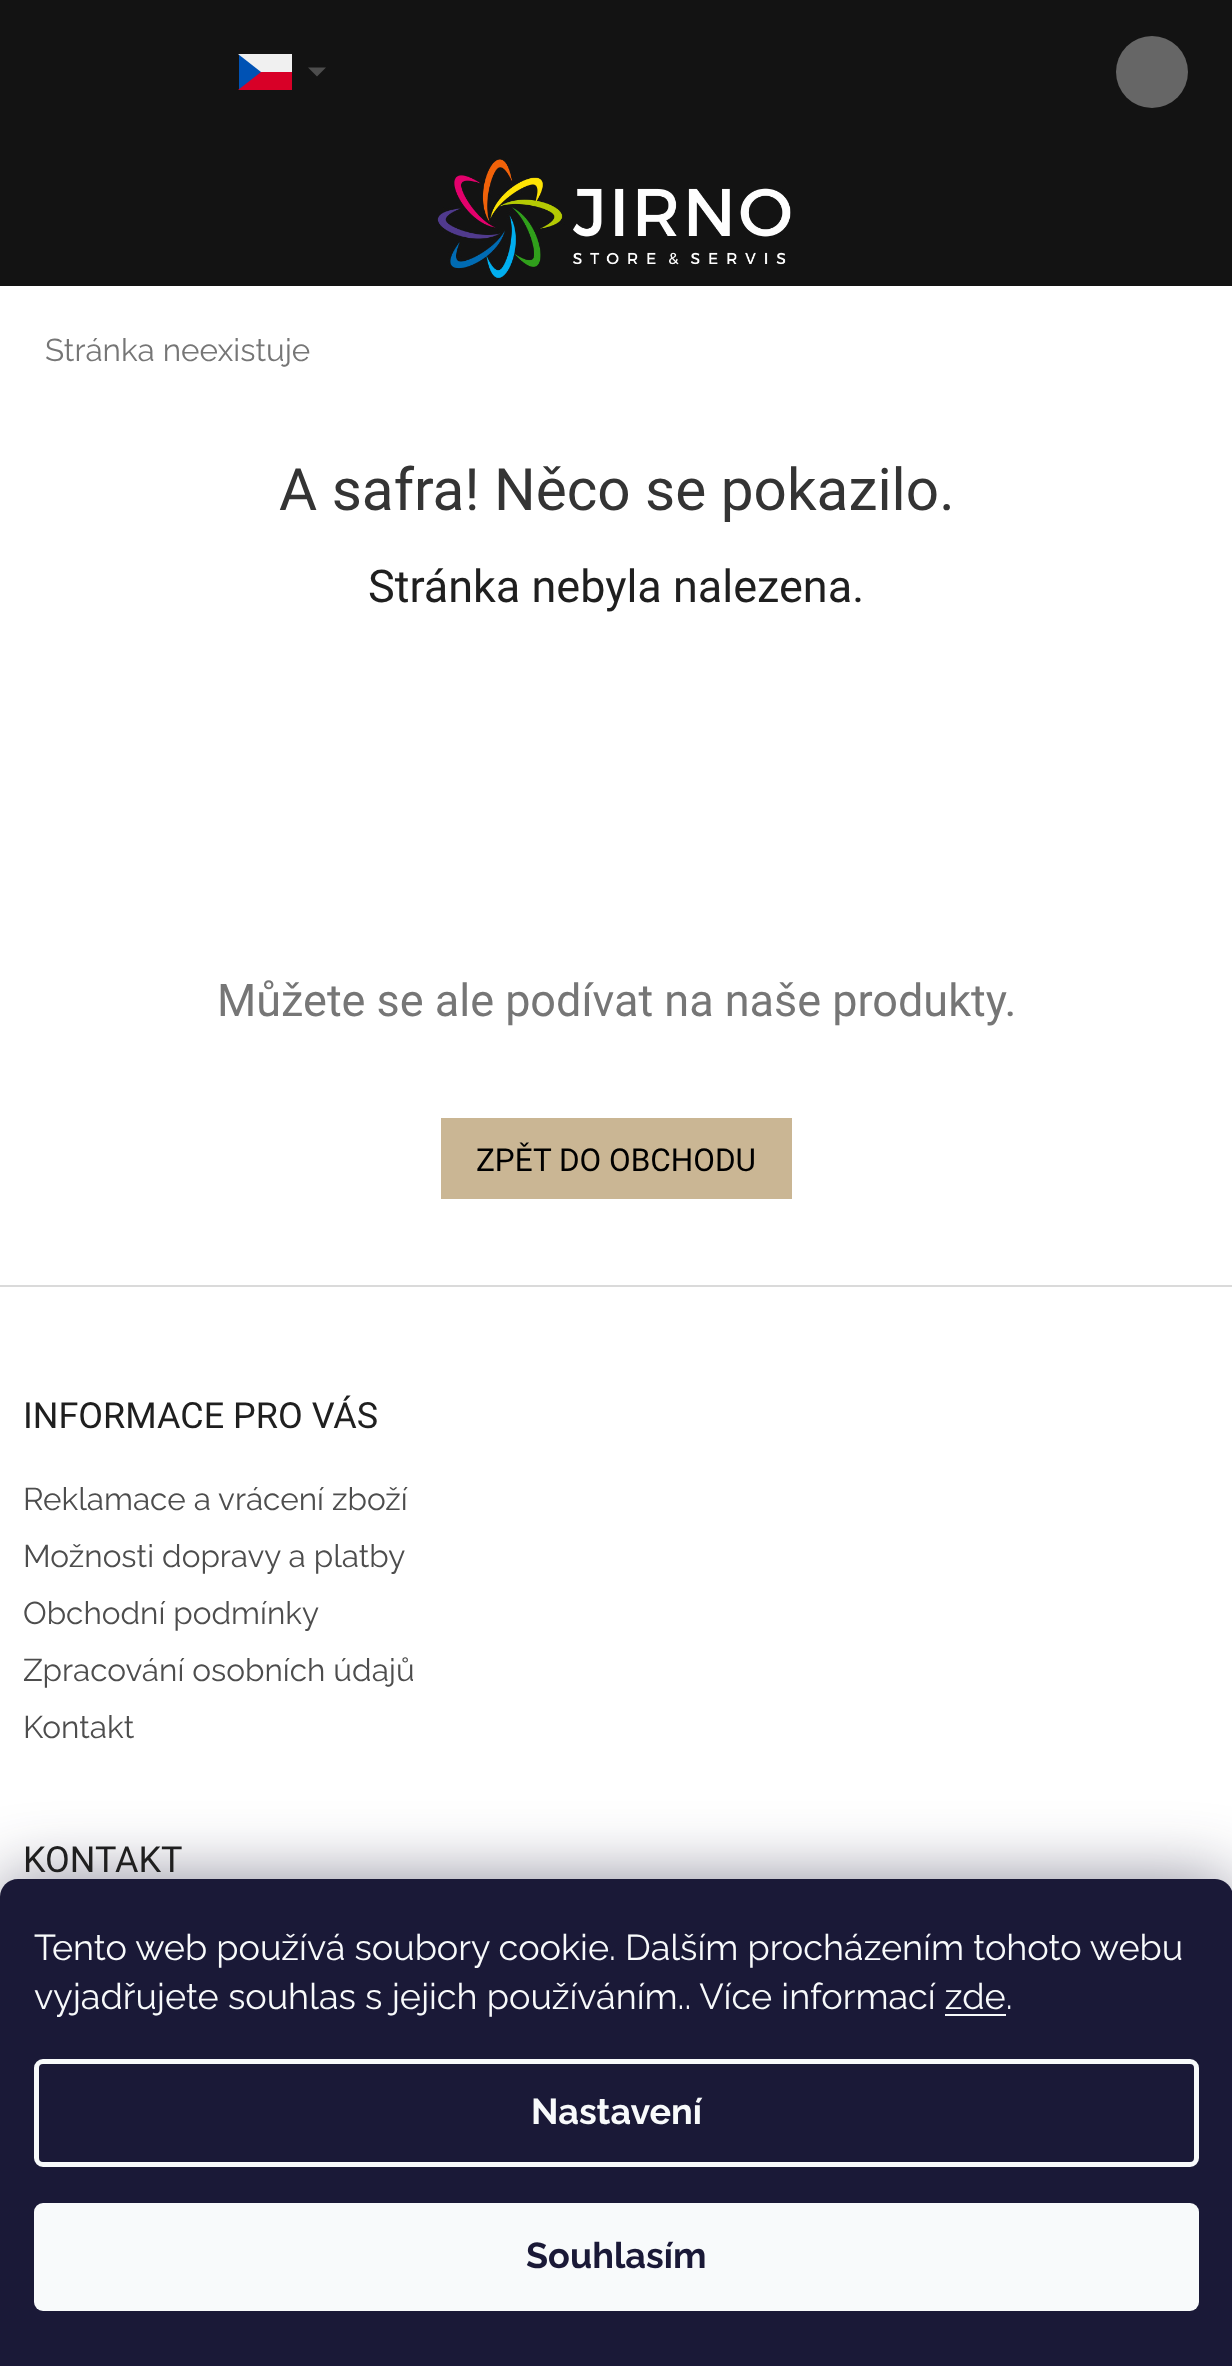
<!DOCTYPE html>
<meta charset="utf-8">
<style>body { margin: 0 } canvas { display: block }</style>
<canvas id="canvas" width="1232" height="2366"></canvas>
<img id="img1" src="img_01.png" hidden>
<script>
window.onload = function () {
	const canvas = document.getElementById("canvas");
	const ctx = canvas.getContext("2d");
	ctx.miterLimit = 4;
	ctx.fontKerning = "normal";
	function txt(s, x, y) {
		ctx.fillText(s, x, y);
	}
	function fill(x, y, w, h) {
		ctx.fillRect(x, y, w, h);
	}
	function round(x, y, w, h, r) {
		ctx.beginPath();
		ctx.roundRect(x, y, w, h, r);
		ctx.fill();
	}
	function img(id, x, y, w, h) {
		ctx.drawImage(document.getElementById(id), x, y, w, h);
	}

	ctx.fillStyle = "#FFFFFF";
	fill(0, 0, 1232, 2366);
	ctx.fillStyle = "#131313";
	fill(0, 0, 1232, 286);
	ctx.fillStyle = "#0052B4";
	fill(239, 54, 22, 36);
	ctx.fillStyle = "#D80027";
	ctx.beginPath();
	ctx.moveTo(292, 72);
	ctx.lineTo(292, 90);
	ctx.lineTo(238, 90);
	ctx.lineTo(261, 72);
	ctx.closePath();
	ctx.fill();
	ctx.fillStyle = "#F0F0F0";
	ctx.beginPath();
	ctx.moveTo(292, 54);
	ctx.lineTo(292, 72);
	ctx.lineTo(261, 72);
	ctx.lineTo(238, 54);
	ctx.closePath();
	ctx.fill();
	ctx.fillStyle = "#4D4D4D";
	ctx.beginPath();
	ctx.moveTo(308, 67.5);
	ctx.lineTo(326, 67.5);
	ctx.lineTo(317, 76.5);
	ctx.closePath();
	ctx.fill();
	ctx.fillStyle = "#666666";
	ctx.beginPath();
	ctx.arc(1152, 72, 36, 0, Math.PI * 2);
	ctx.fill();
	img("img1", 437, 159, 354, 120);
	ctx.fillStyle = "#CAB694";
	fill(441, 1118, 351, 81);
	ctx.fillStyle = "#DADADA";
	fill(0, 1285, 1232, 2);
	ctx.fillStyle = "rgba(27, 25, 57, 0.5)";
	ctx.filter = "blur(34px)";
	ctx.beginPath();
	ctx.roundRect(0, 1879, 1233, 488, 18);
	ctx.fill();
	ctx.filter = "none";
	ctx.fillStyle = "#1A1937";
	ctx.beginPath();
	ctx.moveTo(18, 1879);
	ctx.lineTo(1215, 1879);
	ctx.bezierCurveTo(1225, 1879, 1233, 1887, 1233, 1897);
	ctx.lineTo(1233, 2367);
	ctx.lineTo(0, 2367);
	ctx.lineTo(0, 1897);
	ctx.bezierCurveTo(0, 1887, 8, 1879, 18, 1879);
	ctx.closePath();
	ctx.fill();
	ctx.fillStyle = "#F8FAFB";
	fill(945, 2014, 61, 2);
	ctx.beginPath();
	ctx.roundRect(36.5, 2061.5, 1160, 103, 6.5);
	ctx.strokeStyle = "#F8FAFB";
	ctx.lineWidth = 5;
	ctx.stroke();
	round(34, 2203, 1165, 108, 9);
	ctx.font = "31.5px Raleway";
	ctx.fillStyle = "#767676";
	txt("Stránka neexistuje", 45, 361);
	ctx.font = "58.5px Roboto";
	ctx.fillStyle = "#343434";
	txt("A safra! Něco se pokazilo.", 279, 510);
	ctx.font = "45px Roboto";
	ctx.fillStyle = "#1F1F1F";
	txt("Stránka nebyla nalezena.", 368, 602);
	ctx.fillStyle = "#767676";
	txt("Můžete se ale podívat na naše produkty.", 217, 1016);
	ctx.font = "31.5px Roboto";
	ctx.fillStyle = "#000000";
	txt("ZPĚT DO OBCHODU", 476, 1171);
	ctx.font = "36px Roboto";
	ctx.fillStyle = "#1F1F1F";
	txt("INFORMACE PRO VÁS", 23, 1428);
	ctx.font = "31.5px Raleway";
	ctx.fillStyle = "#4D4D4D";
	txt("Reklamace a vrácení zboží", 23, 1510);
	txt("Možnosti dopravy a platby", 23, 1567);
	txt("Obchodní podmínky", 23, 1624);
	txt("Zpracování osobních údajů", 23, 1681);
	txt("Kontakt", 23, 1738);
	ctx.font = "36px Roboto";
	ctx.fillStyle = "#1F1F1F";
	txt("KONTAKT", 23, 1872);
	ctx.font = "36px Raleway";
	ctx.fillStyle = "#F8FAFB";
	txt("Tento web používá soubory cookie. Dalším procházením tohoto webu", 34, 1960);
	txt("vyjadřujete souhlas s jejich používáním.. Více informací zde.", 34, 2009);
	ctx.font = "bold 36px Raleway";
	txt("Nastavení", 531, 2124);
	ctx.fillStyle = "#1A1937";
	txt("Souhlasím", 526, 2268);
};
</script>
